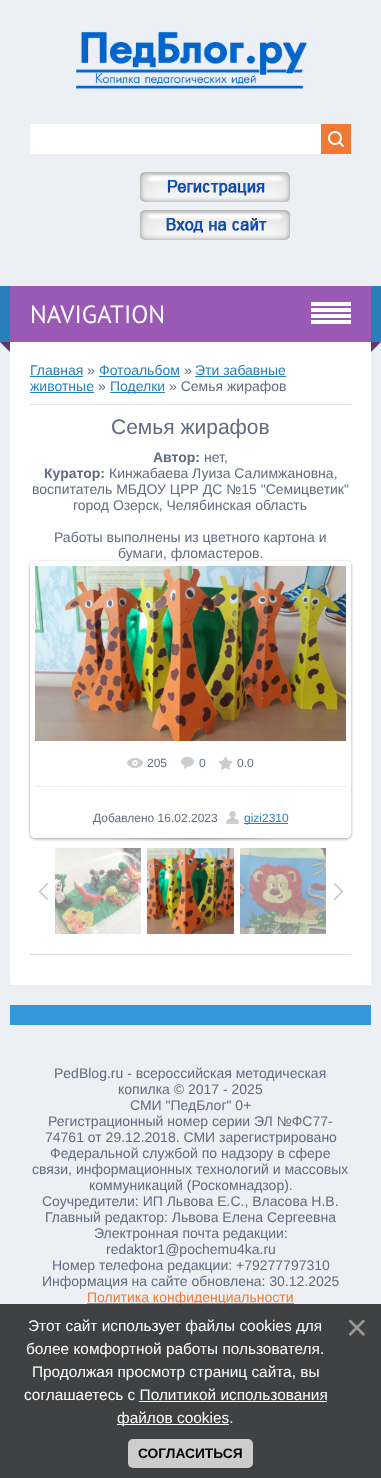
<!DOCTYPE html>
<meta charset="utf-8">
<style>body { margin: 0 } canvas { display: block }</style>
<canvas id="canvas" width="381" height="1478"></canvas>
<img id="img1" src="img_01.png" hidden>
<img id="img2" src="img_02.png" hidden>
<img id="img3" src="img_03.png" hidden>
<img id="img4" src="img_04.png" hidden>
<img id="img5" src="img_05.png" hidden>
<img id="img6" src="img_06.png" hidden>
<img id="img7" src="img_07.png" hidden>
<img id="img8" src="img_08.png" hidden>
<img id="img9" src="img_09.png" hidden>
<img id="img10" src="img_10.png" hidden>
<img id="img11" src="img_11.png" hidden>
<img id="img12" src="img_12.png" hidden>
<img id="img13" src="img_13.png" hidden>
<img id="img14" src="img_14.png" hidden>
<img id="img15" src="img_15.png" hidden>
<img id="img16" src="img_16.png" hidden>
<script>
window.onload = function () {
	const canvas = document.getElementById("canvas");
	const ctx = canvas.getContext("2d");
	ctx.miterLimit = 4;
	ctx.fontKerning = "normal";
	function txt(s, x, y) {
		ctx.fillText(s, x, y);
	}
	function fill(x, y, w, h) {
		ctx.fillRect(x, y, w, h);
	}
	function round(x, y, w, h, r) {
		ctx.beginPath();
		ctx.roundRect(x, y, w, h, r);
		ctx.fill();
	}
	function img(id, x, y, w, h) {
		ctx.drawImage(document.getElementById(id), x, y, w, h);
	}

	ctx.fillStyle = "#ECEFF3";
	fill(0, 0, 381, 1478);
	img("img1", 76, 31, 231, 58);
	ctx.fillStyle = "#FFFFFF";
	fill(30, 124, 291, 30);
	ctx.fillStyle = "#F27935";
	fill(321, 124, 30, 30);
	img("img2", 328, 131, 16, 16);
	img("img3", 140, 172, 150, 30);
	img("img4", 140, 210, 150, 30);
	ctx.fillStyle = "#2980B9";
	fill(0, 286, 381, 56);
	ctx.fillStyle = "#9B59B6";
	fill(10, 286, 361, 56);
	ctx.fillStyle = "#FFFFFF";
	fill(311, 302, 40, 4);
	fill(311, 308, 40, 4);
	fill(311, 314, 40, 4);
	fill(311, 320, 40, 4);
	ctx.fillStyle = "#613673";
	ctx.beginPath();
	ctx.moveTo(0, 342);
	ctx.lineTo(10, 342);
	ctx.lineTo(10, 352);
	ctx.closePath();
	ctx.fill();
	ctx.beginPath();
	ctx.moveTo(371, 342);
	ctx.lineTo(381, 342);
	ctx.lineTo(371, 352);
	ctx.closePath();
	ctx.fill();
	ctx.fillStyle = "#FFFFFF";
	fill(10, 342, 361, 643);
	ctx.fillStyle = "#2980B9";
	fill(30, 376, 53, 1);
	fill(99, 376, 81, 1);
	fill(195, 376, 91, 1);
	fill(30, 392, 64, 1);
	fill(110, 392, 55, 1);
	ctx.fillStyle = "#DBE1E8";
	fill(30, 404, 321, 1);
	ctx.save();
	ctx.beginPath();
	ctx.moveTo(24, 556);
	ctx.lineTo(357, 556);
	ctx.lineTo(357, 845);
	ctx.lineTo(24, 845);
	ctx.closePath();
	ctx.moveTo(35, 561);
	ctx.lineTo(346, 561);
	ctx.bezierCurveTo(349, 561, 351, 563, 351, 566);
	ctx.lineTo(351, 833);
	ctx.bezierCurveTo(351, 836, 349, 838, 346, 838);
	ctx.lineTo(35, 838);
	ctx.bezierCurveTo(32, 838, 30, 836, 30, 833);
	ctx.lineTo(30, 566);
	ctx.bezierCurveTo(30, 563, 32, 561, 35, 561);
	ctx.closePath();
	ctx.clip("evenodd");
	ctx.fillStyle = "rgba(0, 0, 0, 0.37)";
	ctx.filter = "blur(1.5px)";
	ctx.beginPath();
	ctx.roundRect(30, 562, 321, 277, 5);
	ctx.fill();
	ctx.filter = "none";
	ctx.restore();
	img("img5", 35, 566, 311, 175);
	img("img6", 127, 758, 16, 10);
	img("img7", 181, 757, 13, 12);
	img("img8", 219, 757, 13, 13);
	img("img9", 35, 786, 311, 1);
	img("img10", 226, 811, 13, 13);
	ctx.fillStyle = "#2980B9";
	fill(244, 823, 44, 1);
	img("img11", 111, 838, 161, 3);
	img("img12", 38, 883, 11, 17);
	img("img13", 55, 848, 86, 86);
	img("img14", 147, 848, 87, 86);
	img("img15", 240, 848, 86, 86);
	img("img16", 333, 883, 11, 17);
	ctx.fillStyle = "#DBE1E8";
	fill(30, 954, 321, 1);
	ctx.fillStyle = "#3498DB";
	fill(10, 1005, 361, 20);
	ctx.fillStyle = "#F27935";
	fill(87, 1303, 207, 1);
	ctx.font = "25px PT Sans";
	ctx.fillStyle = "#FFFFFF";
	txt("NAVIGATION", 30, 323);
	ctx.font = "14px Liberation Sans";
	ctx.fillStyle = "#2980B9";
	txt("Главная", 30, 375);
	ctx.fillStyle = "#5E6D81";
	txt("»", 87, 375);
	ctx.fillStyle = "#2980B9";
	txt("Фотоальбом", 99, 375);
	ctx.fillStyle = "#5E6D81";
	txt("»", 184, 375);
	ctx.fillStyle = "#2980B9";
	txt("Эти забавные", 195, 375);
	txt("животные", 30, 391);
	ctx.fillStyle = "#5E6D81";
	txt("»", 98, 391);
	ctx.fillStyle = "#2980B9";
	txt("Поделки", 110, 391);
	ctx.fillStyle = "#5E6D81";
	txt("» Семья жирафов", 169, 391);
	ctx.font = "21px Liberation Sans";
	txt("Семья жирафов", 111, 434);
	ctx.font = "bold 14px Liberation Sans";
	txt("Автор:", 153, 462);
	ctx.font = "14px Liberation Sans";
	txt("нет,", 204, 462);
	ctx.font = "bold 14px Liberation Sans";
	txt("Куратор:", 44, 478);
	ctx.font = "14px Liberation Sans";
	txt("Кинжабаева Луиза Салимжановна,", 109, 478);
	txt("воспитатель МБДОУ ЦРР ДС №15 \"Семицветик\"", 32, 494);
	txt("город Озерск, Челябинская область", 73, 510);
	txt("Работы выполнены из цветного картона и", 54, 542);
	txt("бумаги, фломастеров.", 118, 558);
	ctx.font = "12px Liberation Sans";
	txt("205", 147, 767);
	txt("0", 199, 767);
	txt("0.0", 237, 767);
	txt("Добавлено 16.02.2023", 93, 822);
	ctx.fillStyle = "#2980B9";
	txt("gizi2310", 244, 822);
	ctx.font = "14px Liberation Sans";
	ctx.fillStyle = "#5E6D81";
	txt("PedBlog.ru - всероссийская методическая", 54, 1078);
	txt("копилка © 2017 - 2025", 118, 1094);
	txt("СМИ \"ПедБлог\" 0+", 130, 1110);
	txt("Регистрационный номер серии ЭЛ №ФС77-", 48, 1126);
	txt("74761 от 29.12.2018. СМИ зарегистрировано", 45, 1142);
	txt("Федеральной службой по надзору в сфере", 50, 1158);
	txt("связи, информационных технологий и массовых", 32, 1174);
	txt("коммуникаций (Роскомнадзор).", 89, 1190);
	txt("Соучредители: ИП Львова Е.С., Власова Н.В.", 42, 1206);
	txt("Главный редактор: Львова Елена Сергеевна", 45, 1222);
	txt("Электронная почта редакции:", 94, 1238);
	txt("redaktor1@pochemu4ka.ru", 106, 1254);
	txt("Номер телефона редакции: +79277797310", 52, 1270);
	txt("Информация на сайте обновлена: 30.12.2025", 42, 1286);
	ctx.fillStyle = "#F27935";
	txt("Политика конфиденциальности", 87, 1302);
	ctx.fillStyle = "rgba(0, 0, 0, 0.73)";
	fill(0, 1304, 381, 174);
	ctx.font = "15.4px Liberation Sans";
	ctx.fillStyle = "#FFFFFF";
	txt("Этот сайт использует файлы cookies для", 28, 1331);
	txt("более комфортной работы пользователя.", 26, 1354);
	txt("Продолжая просмотр страниц сайта, вы", 32, 1377);
	txt("соглашаетесь с Политикой использования", 24, 1400);
	fill(139, 1401, 188, 1);
	fill(117, 1424, 112, 1);
	txt("файлов cookies.", 117, 1423);
	ctx.font = "37px Liberation Sans";
	ctx.fillStyle = "#999999";
	txt("×", 346, 1340);
	ctx.fillStyle = "#CCCCCC";
	round(128, 1439, 125, 29, 5);
	ctx.font = "bold 13.75px Liberation Sans";
	ctx.fillStyle = "#000000";
	txt("СОГЛАСИТЬСЯ", 138, 1458);
};
</script>
